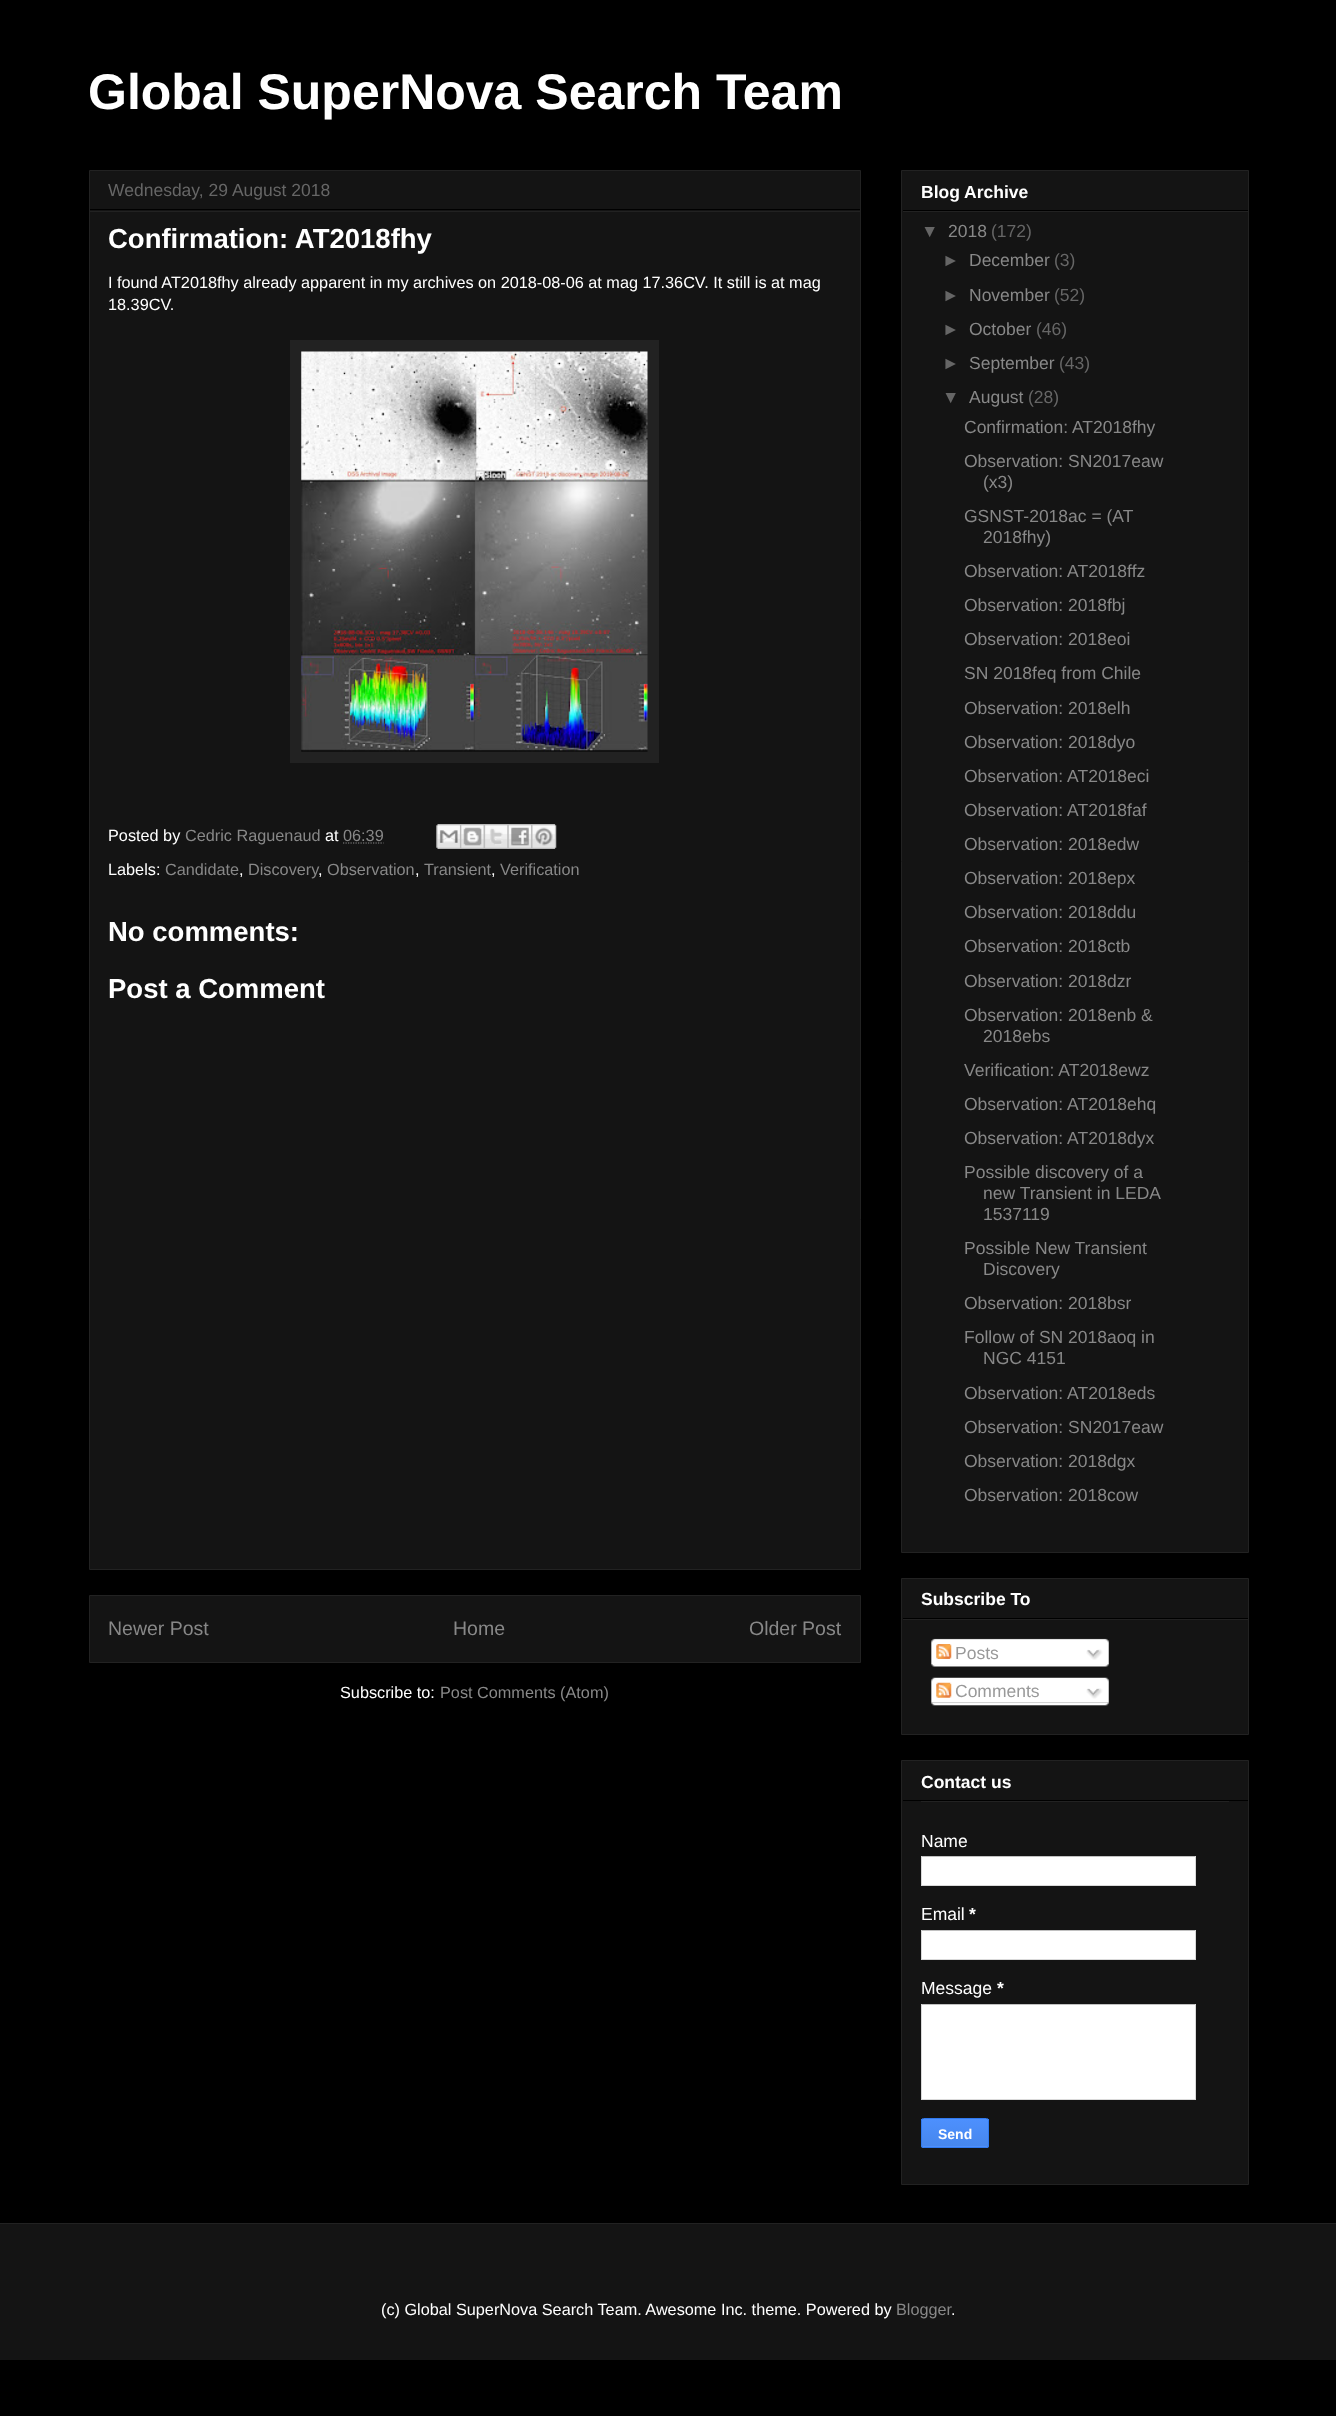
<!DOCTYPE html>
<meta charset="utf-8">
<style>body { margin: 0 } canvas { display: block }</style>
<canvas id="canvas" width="1336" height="2416"></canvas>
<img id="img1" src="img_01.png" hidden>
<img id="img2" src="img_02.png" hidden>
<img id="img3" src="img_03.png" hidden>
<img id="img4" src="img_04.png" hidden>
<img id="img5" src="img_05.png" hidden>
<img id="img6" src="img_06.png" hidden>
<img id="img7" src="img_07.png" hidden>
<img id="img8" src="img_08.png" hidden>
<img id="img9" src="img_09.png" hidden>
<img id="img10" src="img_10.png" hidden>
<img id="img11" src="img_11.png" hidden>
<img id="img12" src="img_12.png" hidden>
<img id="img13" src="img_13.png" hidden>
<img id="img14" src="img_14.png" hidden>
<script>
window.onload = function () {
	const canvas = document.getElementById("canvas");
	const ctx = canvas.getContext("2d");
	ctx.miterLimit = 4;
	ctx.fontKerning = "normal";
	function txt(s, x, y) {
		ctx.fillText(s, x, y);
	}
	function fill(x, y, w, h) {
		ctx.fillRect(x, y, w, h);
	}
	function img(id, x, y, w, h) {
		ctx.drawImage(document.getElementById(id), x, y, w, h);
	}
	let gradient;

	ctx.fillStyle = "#000000";
	fill(0, 0, 1336, 2416);
	ctx.fillStyle = "#141414";
	ctx.beginPath();
	ctx.rect(89.5, 170.5, 771, 1399);
	ctx.fill();
	ctx.strokeStyle = "#222222";
	ctx.stroke();
	ctx.fillStyle = "#000000";
	fill(90, 209, 770, 1);
	ctx.fillStyle = "#222222";
	fill(90, 211, 770, 1);
	fill(290, 340, 369, 423);
	img("img1", 301, 351, 347, 401);
	ctx.beginPath();
	ctx.moveTo(343, 843);
	ctx.lineTo(383.5, 843);
	ctx.strokeStyle = "#888888";
	ctx.lineWidth = 1.2;
	ctx.setLineDash([1.25, 1.25]);
	ctx.stroke();
	img("img2", 436, 824, 24, 25);
	img("img3", 460, 824, 24, 25);
	img("img4", 483, 824, 25, 25);
	img("img5", 507, 824, 25, 25);
	img("img6", 531, 824, 26, 25);
	ctx.fillStyle = "#141414";
	ctx.beginPath();
	ctx.rect(89.5, 1595.5, 771, 67);
	ctx.fill();
	ctx.strokeStyle = "#222222";
	ctx.lineWidth = 1;
	ctx.setLineDash([]);
	ctx.stroke();
	ctx.beginPath();
	ctx.rect(901.5, 170.5, 347, 1382);
	ctx.fill();
	ctx.stroke();
	ctx.fillStyle = "#000000";
	fill(903, 210, 345, 1);
	ctx.fillStyle = "#222222";
	fill(903, 211, 345, 1);
	ctx.fillStyle = "#141414";
	ctx.beginPath();
	ctx.rect(901.5, 1578.5, 347, 156);
	ctx.fill();
	ctx.stroke();
	ctx.fillStyle = "#000000";
	fill(903, 1618, 345, 1);
	ctx.fillStyle = "#222222";
	fill(903, 1619, 345, 1);
	img("img7", 931, 1638, 178, 26);
	img("img8", 936, 1644, 16, 15);
	img("img9", 1086, 1649, 17, 11);
	img("img10", 931, 1664, 178, 3);
	img("img11", 931, 1677, 178, 26);
	img("img12", 936, 1682, 16, 16);
	img("img13", 1086, 1688, 17, 11);
	img("img14", 931, 1702, 178, 4);
	ctx.fillStyle = "#141414";
	ctx.beginPath();
	ctx.rect(901.5, 1760.5, 347, 424);
	ctx.fill();
	ctx.stroke();
	ctx.fillStyle = "#000000";
	fill(903, 1800, 345, 1);
	ctx.fillStyle = "#222222";
	fill(921, 1801, 308, 1);
	ctx.fillStyle = "#FFFFFF";
	fill(922, 1857, 273, 28);
	ctx.fillStyle = "#C0C0C0";
	fill(921, 1856, 275, 1);
	ctx.fillStyle = "#D9D9D9";
	fill(1195, 1856, 1, 30);
	fill(921, 1885, 275, 1);
	fill(921, 1856, 1, 30);
	ctx.fillStyle = "#FFFFFF";
	fill(922, 1931, 273, 28);
	ctx.fillStyle = "#C0C0C0";
	fill(921, 1930, 275, 1);
	ctx.fillStyle = "#D9D9D9";
	fill(1195, 1930, 1, 30);
	fill(921, 1959, 275, 1);
	fill(921, 1930, 1, 30);
	ctx.fillStyle = "#FFFFFF";
	fill(922, 2005, 273, 94);
	ctx.fillStyle = "#C0C0C0";
	fill(921, 2004, 275, 1);
	ctx.fillStyle = "#D9D9D9";
	fill(1195, 2004, 1, 96);
	fill(921, 2099, 275, 1);
	fill(921, 2004, 1, 96);
	gradient = ctx.createLinearGradient(955, 2119, 955, 2146);
	gradient.addColorStop(0, "#4D90FE");
	gradient.addColorStop(1, "#4787ED");
	ctx.fillStyle = gradient;
	fill(921, 2119, 68, 27);
	ctx.save();
	ctx.beginPath();
	ctx.roundRect(921, 2118, 68, 30, 2.5);
	ctx.clip();
	gradient = ctx.createLinearGradient(955, 2146, 955, 2174);
	gradient.addColorStop(0, "#4D90FE");
	gradient.addColorStop(1, "#4787ED");
	ctx.fillStyle = gradient;
	fill(921, 2146, 68, 2);
	ctx.restore();
	ctx.beginPath();
	ctx.roundRect(921.5, 2118.5, 67, 29, 2);
	ctx.strokeStyle = "#3079ED";
	ctx.stroke();
	ctx.fillStyle = "#141414";
	fill(0, 2224, 1336, 136);
	ctx.fillStyle = "#222222";
	fill(0, 2223, 1336, 1);
	ctx.font = "bold 50px Liberation Sans";
	ctx.fillStyle = "#FFFFFF";
	txt("Global SuperNova Search Team", 88, 109);
	ctx.font = "17.5px Liberation Sans";
	ctx.fillStyle = "#666666";
	txt("Wednesday, 29 August 2018", 108, 196);
	ctx.font = "bold 27.5px Liberation Sans";
	ctx.fillStyle = "#FFFFFF";
	txt("Confirmation: AT2018fhy", 108, 248);
	ctx.font = "16.25px Liberation Sans";
	txt("I found AT2018fhy already apparent in my archives on 2018-08-06 at mag 17.36CV. It still is at mag", 108, 288);
	txt("18.39CV.", 108, 310);
	txt("Posted by", 108, 841);
	ctx.fillStyle = "#888888";
	txt("Cedric Raguenaud", 185, 841);
	ctx.fillStyle = "#FFFFFF";
	txt("at", 325, 841);
	ctx.fillStyle = "#888888";
	txt("06:39", 343, 841);
	ctx.fillStyle = "#FFFFFF";
	txt("Labels:", 108, 875);
	ctx.fillStyle = "#888888";
	txt("Candidate", 165, 875);
	ctx.fillStyle = "#FFFFFF";
	txt(",", 239, 875);
	ctx.fillStyle = "#888888";
	txt("Discovery", 248, 875);
	ctx.fillStyle = "#FFFFFF";
	txt(",", 318, 875);
	ctx.fillStyle = "#888888";
	txt("Observation", 327, 875);
	ctx.fillStyle = "#FFFFFF";
	txt(",", 415, 875);
	ctx.fillStyle = "#888888";
	txt("Transient", 424, 875);
	ctx.fillStyle = "#FFFFFF";
	txt(",", 491, 875);
	ctx.fillStyle = "#888888";
	txt("Verification", 500, 875);
	ctx.font = "bold 27.5px Liberation Sans";
	ctx.fillStyle = "#FFFFFF";
	txt("No comments:", 108, 941);
	txt("Post a Comment", 108, 998);
	ctx.font = "19.5px Liberation Sans";
	ctx.fillStyle = "#888888";
	txt("Newer Post", 108, 1635);
	txt("Home", 453, 1635);
	txt("Older Post", 749, 1635);
	ctx.font = "16.25px Liberation Sans";
	ctx.fillStyle = "#FFFFFF";
	txt("Subscribe to:", 340, 1698);
	ctx.fillStyle = "#888888";
	txt("Post Comments (Atom)", 440, 1698);
	ctx.font = "bold 17.5px Liberation Sans";
	ctx.fillStyle = "#FFFFFF";
	txt("Blog Archive", 921, 198);
	ctx.font = "17.5px Liberation Sans";
	ctx.fillStyle = "#666666";
	txt("▼", 921, 237);
	ctx.fillStyle = "#888888";
	txt("2018", 948, 237);
	ctx.fillStyle = "#666666";
	txt("(172)", 991, 237);
	txt("►", 942, 266);
	ctx.fillStyle = "#888888";
	txt("December", 969, 266);
	ctx.fillStyle = "#666666";
	txt("(3)", 1054, 266);
	txt("►", 942, 301);
	ctx.fillStyle = "#888888";
	txt("November", 969, 301);
	ctx.fillStyle = "#666666";
	txt("(52)", 1054, 301);
	txt("►", 942, 335);
	ctx.fillStyle = "#888888";
	txt("October", 969, 335);
	ctx.fillStyle = "#666666";
	txt("(46)", 1036, 335);
	txt("►", 942, 369);
	ctx.fillStyle = "#888888";
	txt("September", 969, 369);
	ctx.fillStyle = "#666666";
	txt("(43)", 1059, 369);
	txt("▼", 942, 403);
	ctx.fillStyle = "#888888";
	txt("August", 969, 403);
	ctx.fillStyle = "#666666";
	txt("(28)", 1028, 403);
	ctx.fillStyle = "#888888";
	txt("Confirmation: AT2018fhy", 964, 433);
	txt("Observation: SN2017eaw", 964, 467);
	txt("(x3)", 983, 488);
	txt("GSNST-2018ac = (AT", 964, 522);
	txt("2018fhy)", 983, 543);
	txt("Observation: AT2018ffz", 964, 577);
	txt("Observation: 2018fbj", 964, 611);
	txt("Observation: 2018eoi", 964, 645);
	txt("SN 2018feq from Chile", 964, 679);
	txt("Observation: 2018elh", 964, 714);
	txt("Observation: 2018dyo", 964, 748);
	txt("Observation: AT2018eci", 964, 782);
	txt("Observation: AT2018faf", 964, 816);
	txt("Observation: 2018edw", 964, 850);
	txt("Observation: 2018epx", 964, 884);
	txt("Observation: 2018ddu", 964, 918);
	txt("Observation: 2018ctb", 964, 952);
	txt("Observation: 2018dzr", 964, 987);
	txt("Observation: 2018enb &", 964, 1021);
	txt("2018ebs", 983, 1042);
	txt("Verification: AT2018ewz", 964, 1076);
	txt("Observation: AT2018ehq", 964, 1110);
	txt("Observation: AT2018dyx", 964, 1144);
	txt("Possible discovery of a", 964, 1178);
	txt("new Transient in LEDA", 983, 1199);
	txt("1537119", 983, 1220);
	txt("Possible New Transient", 964, 1254);
	txt("Discovery", 983, 1275);
	txt("Observation: 2018bsr", 964, 1309);
	txt("Follow of SN 2018aoq in", 964, 1343);
	txt("NGC 4151", 983, 1364);
	txt("Observation: AT2018eds", 964, 1399);
	txt("Observation: SN2017eaw", 964, 1433);
	txt("Observation: 2018dgx", 964, 1467);
	txt("Observation: 2018cow", 964, 1501);
	ctx.font = "bold 17.5px Liberation Sans";
	ctx.fillStyle = "#FFFFFF";
	txt("Subscribe To", 921, 1605);
	ctx.font = "17.5px Liberation Sans";
	ctx.fillStyle = "#999999";
	txt("Posts", 955, 1659);
	txt("Comments", 955, 1697);
	ctx.font = "bold 17.5px Liberation Sans";
	ctx.fillStyle = "#FFFFFF";
	txt("Contact us", 921, 1788);
	ctx.font = "17.5px Liberation Sans";
	txt("Name", 921, 1847);
	txt("Email", 921, 1920);
	ctx.font = "bold 17.5px Liberation Sans";
	txt("*", 969, 1920);
	ctx.font = "17.5px Liberation Sans";
	txt("Message", 921, 1994);
	ctx.font = "bold 17.5px Liberation Sans";
	txt("*", 997, 1994);
	ctx.font = "bold 14px Liberation Sans";
	txt("Send", 938, 2139);
	ctx.font = "16.25px Liberation Sans";
	txt("(c) Global SuperNova Search Team. Awesome Inc. theme. Powered by", 381, 2315);
	ctx.fillStyle = "#888888";
	txt("Blogger", 896, 2315);
	ctx.fillStyle = "#FFFFFF";
	txt(".", 951, 2315);
};
</script>
